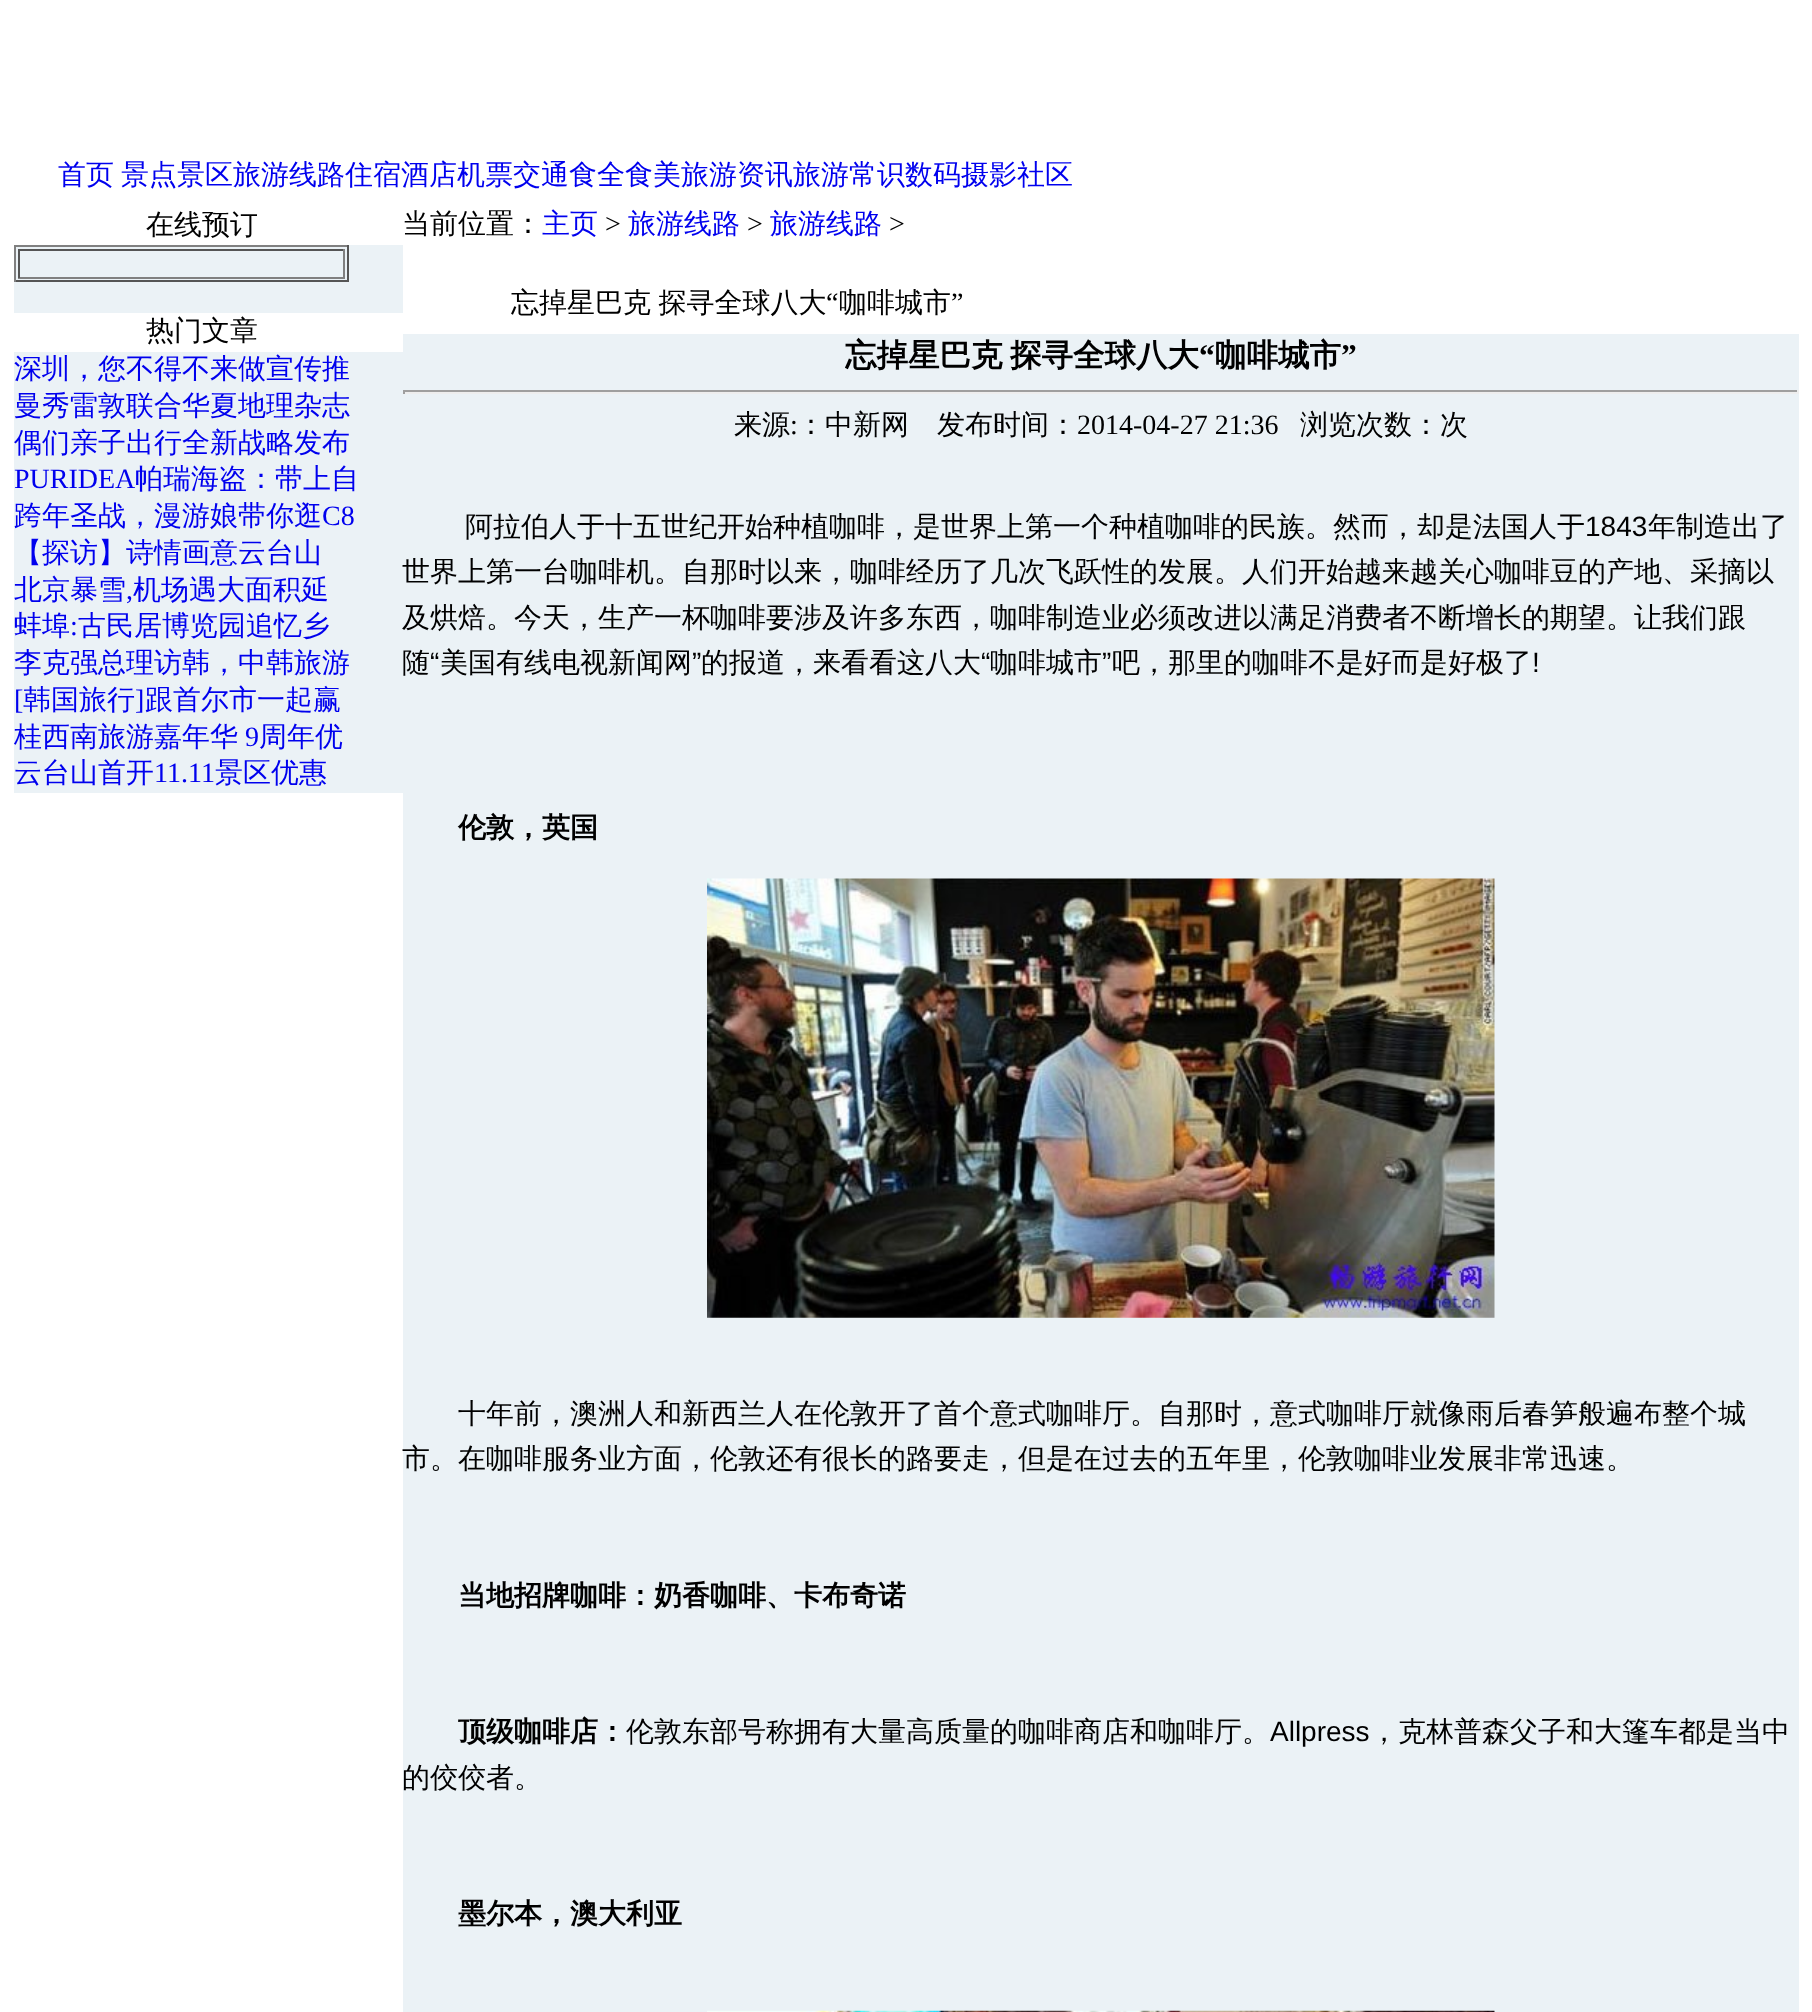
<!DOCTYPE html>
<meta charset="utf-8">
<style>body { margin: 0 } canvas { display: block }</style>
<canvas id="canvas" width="1812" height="2012"></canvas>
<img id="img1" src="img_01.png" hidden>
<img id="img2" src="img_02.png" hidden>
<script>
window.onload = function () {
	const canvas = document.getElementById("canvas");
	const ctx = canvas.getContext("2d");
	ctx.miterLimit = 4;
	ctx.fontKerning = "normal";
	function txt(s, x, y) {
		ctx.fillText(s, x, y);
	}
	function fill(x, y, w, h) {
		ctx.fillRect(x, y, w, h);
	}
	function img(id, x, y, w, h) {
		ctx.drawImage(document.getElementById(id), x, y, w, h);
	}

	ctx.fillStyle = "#FFFFFF";
	fill(0, 0, 1812, 2012);
	ctx.fillStyle = "#EBF2F6";
	fill(14, 245, 389, 68);
	ctx.fillStyle = "#808080";
	fill(14, 245, 334, 2);
	ctx.fillStyle = "#555555";
	fill(347, 245, 2, 37);
	fill(14, 280, 334, 2);
	ctx.fillStyle = "#808080";
	fill(14, 245, 2, 37);
	ctx.fillStyle = "#555555";
	fill(18, 249, 327, 2);
	ctx.fillStyle = "#808080";
	fill(343, 249, 2, 29);
	fill(18, 277, 327, 2);
	ctx.fillStyle = "#555555";
	fill(18, 249, 2, 29);
	ctx.fillStyle = "#EBF2F6";
	fill(14, 352, 389, 441);
	fill(403, 334, 1396, 1678);
	ctx.fillStyle = "#9F9F9F";
	fill(403, 390, 1396, 2);
	ctx.fillStyle = "#EEEEEE";
	fill(1797, 390, 2, 4);
	fill(403, 392, 1396, 2);
	ctx.fillStyle = "#9F9F9F";
	fill(403, 390, 2, 4);
	img("img1", 707, 878, 788, 440);
	img("img2", 707, 2010, 788, 2);
	ctx.font = "500 28px WenQuanYi Zen Hei";
	ctx.fillStyle = "#0000EE";
	txt("首页", 58, 184);
	txt("景点景区旅游线路住宿酒店机票交通食全食美旅游资讯旅游常识数码摄影社区", 121, 184);
	ctx.fillStyle = "#000000";
	txt("在线预订", 146, 234);
	txt("热门文章", 146, 340);
	ctx.fillStyle = "#0000EE";
	txt("深圳，您不得不来做宣传推", 14, 378);
	txt("曼秀雷敦联合华夏地理杂志", 14, 415);
	txt("偶们亲子出行全新战略发布", 14, 452);
	ctx.font = "28px Liberation Serif";
	txt("PURIDEA", 14, 488);
	ctx.font = "500 28px WenQuanYi Zen Hei";
	txt("帕瑞海盗：带上自", 135, 488);
	txt("跨年圣战，漫游娘带你逛", 14, 525);
	ctx.font = "28px Liberation Serif";
	txt("C8", 322, 525);
	ctx.font = "500 28px WenQuanYi Zen Hei";
	txt("【探访】诗情画意云台山", 14, 562);
	txt("北京暴雪", 14, 599);
	ctx.font = "28px Liberation Serif";
	txt(",", 126, 599);
	ctx.font = "500 28px WenQuanYi Zen Hei";
	txt("机场遇大面积延", 133, 599);
	txt("蚌埠", 14, 635);
	ctx.font = "28px Liberation Serif";
	txt(":", 70, 635);
	ctx.font = "500 28px WenQuanYi Zen Hei";
	txt("古民居博览园追忆乡", 78, 635);
	txt("李克强总理访韩，中韩旅游", 14, 672);
	ctx.font = "28px Liberation Serif";
	txt("[", 14, 709);
	ctx.font = "500 28px WenQuanYi Zen Hei";
	txt("韩国旅行", 23, 709);
	ctx.font = "28px Liberation Serif";
	txt("]", 135, 709);
	ctx.font = "500 28px WenQuanYi Zen Hei";
	txt("跟首尔市一起赢", 145, 709);
	txt("桂西南旅游嘉年华", 14, 746);
	ctx.font = "28px Liberation Serif";
	txt("9", 245, 746);
	ctx.font = "500 28px WenQuanYi Zen Hei";
	txt("周年优", 259, 746);
	txt("云台山首开", 14, 782);
	ctx.font = "28px Liberation Serif";
	txt("11.11", 154, 782);
	ctx.font = "500 28px WenQuanYi Zen Hei";
	txt("景区优惠", 215, 782);
	ctx.fillStyle = "#000000";
	txt("当前位置：", 402, 233);
	ctx.fillStyle = "#0000EE";
	txt("主页", 542, 233);
	ctx.font = "28px Liberation Serif";
	ctx.fillStyle = "#000000";
	txt(">", 605, 233);
	ctx.font = "500 28px WenQuanYi Zen Hei";
	ctx.fillStyle = "#0000EE";
	txt("旅游线路", 628, 233);
	ctx.font = "28px Liberation Serif";
	ctx.fillStyle = "#000000";
	txt(">", 747, 233);
	ctx.font = "500 28px WenQuanYi Zen Hei";
	ctx.fillStyle = "#0000EE";
	txt("旅游线路", 770, 233);
	ctx.font = "28px Liberation Serif";
	ctx.fillStyle = "#000000";
	txt(">", 889, 233);
	ctx.wordSpacing = "-1px";
	ctx.font = "500 28px WenQuanYi Zen Hei";
	txt("忘掉星巴克 探寻全球八大", 511, 312);
	ctx.wordSpacing = "0px";
	ctx.font = "28px Liberation Serif";
	txt("“", 826, 312);
	ctx.font = "500 28px WenQuanYi Zen Hei";
	txt("咖啡城市", 839, 312);
	ctx.font = "28px Liberation Serif";
	txt("”", 951, 312);
	ctx.wordSpacing = "-2px";
	ctx.font = "bold 31.5px WenQuanYi Zen Hei";
	txt("忘掉星巴克 探寻全球八大", 845, 366);
	ctx.wordSpacing = "0px";
	ctx.font = "bold 31.5px Liberation Serif";
	txt("“", 1199, 366);
	ctx.font = "bold 31.5px WenQuanYi Zen Hei";
	txt("咖啡城市", 1215, 366);
	ctx.font = "bold 31.5px Liberation Serif";
	txt("”", 1341, 366);
	ctx.font = "500 28px WenQuanYi Zen Hei";
	txt("来源", 734, 434);
	ctx.font = "28px Liberation Serif";
	txt(":", 790, 434);
	ctx.font = "500 28px WenQuanYi Zen Hei";
	txt("：中新网", 797, 434);
	txt("发布时间：", 937, 434);
	ctx.font = "28px Liberation Serif";
	txt("2014-04-27 21:36", 1077, 434);
	ctx.font = "500 28px WenQuanYi Zen Hei";
	txt("浏览次数：次", 1300, 434);
	txt("阿拉伯人于十五世纪开始种植咖啡，是世界上第一个种植咖啡的民族。然而，却是法国人于", 465, 536);
	ctx.font = "28px Liberation Sans";
	txt("1843", 1585, 536);
	ctx.font = "500 28px WenQuanYi Zen Hei";
	txt("年制造出了", 1648, 536);
	txt("世界上第一台咖啡机。自那时以来，咖啡经历了几次飞跃性的发展。人们开始越来越关心咖啡豆的产地、采摘以", 402, 581);
	txt("及烘焙。今天，生产一杯咖啡要涉及许多东西，咖啡制造业必须改进以满足消费者不断增长的期望。让我们跟", 402, 627);
	txt("随", 402, 672);
	ctx.font = "28px Liberation Sans";
	txt("“", 430, 672);
	ctx.font = "500 28px WenQuanYi Zen Hei";
	txt("美国有线电视新闻网", 440, 672);
	ctx.font = "28px Liberation Sans";
	txt("”", 692, 672);
	ctx.font = "500 28px WenQuanYi Zen Hei";
	txt("的报道，来看看这八大", 701, 672);
	ctx.font = "28px Liberation Sans";
	txt("“", 981, 672);
	ctx.font = "500 28px WenQuanYi Zen Hei";
	txt("咖啡城市", 990, 672);
	ctx.font = "28px Liberation Sans";
	txt("”", 1102, 672);
	ctx.font = "500 28px WenQuanYi Zen Hei";
	txt("吧，那里的咖啡不是好而是好极了", 1112, 672);
	ctx.font = "28px Liberation Sans";
	txt("!", 1532, 672);
	ctx.font = "bold 28px WenQuanYi Zen Hei";
	txt("伦敦，英国", 458, 837);
	ctx.font = "500 28px WenQuanYi Zen Hei";
	txt("十年前，澳洲人和新西兰人在伦敦开了首个意式咖啡厅。自那时，意式咖啡厅就像雨后春笋般遍布整个城", 458, 1423);
	txt("市。在咖啡服务业方面，伦敦还有很长的路要走，但是在过去的五年里，伦敦咖啡业发展非常迅速。", 402, 1468);
	ctx.font = "bold 28px WenQuanYi Zen Hei";
	txt("当地招牌咖啡：奶香咖啡、卡布奇诺", 458, 1605);
	txt("顶级咖啡店：", 458, 1741);
	ctx.font = "500 28px WenQuanYi Zen Hei";
	txt("伦敦东部号称拥有大量高质量的咖啡商店和咖啡厅。", 626, 1741);
	ctx.font = "28px Liberation Sans";
	txt("Allpress", 1270, 1741);
	ctx.font = "500 28px WenQuanYi Zen Hei";
	txt("，克林普森父子和大篷车都是当中", 1370, 1741);
	txt("的佼佼者。", 402, 1787);
	ctx.font = "bold 28px WenQuanYi Zen Hei";
	txt("墨尔本，澳大利亚", 458, 1923);
};
</script>
